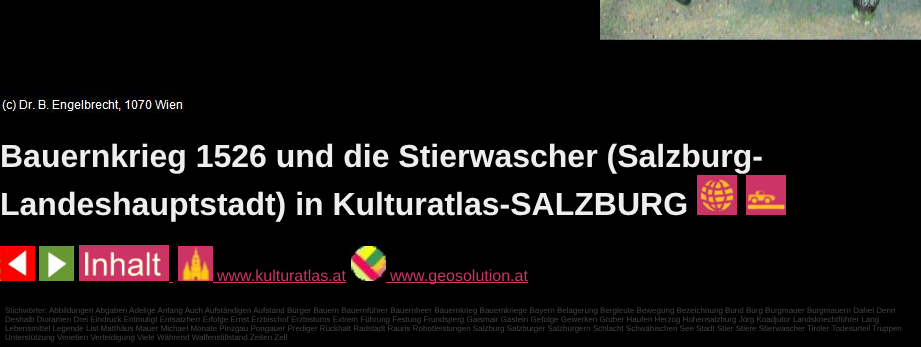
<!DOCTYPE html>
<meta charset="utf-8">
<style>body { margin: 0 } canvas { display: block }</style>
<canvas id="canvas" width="921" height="347"></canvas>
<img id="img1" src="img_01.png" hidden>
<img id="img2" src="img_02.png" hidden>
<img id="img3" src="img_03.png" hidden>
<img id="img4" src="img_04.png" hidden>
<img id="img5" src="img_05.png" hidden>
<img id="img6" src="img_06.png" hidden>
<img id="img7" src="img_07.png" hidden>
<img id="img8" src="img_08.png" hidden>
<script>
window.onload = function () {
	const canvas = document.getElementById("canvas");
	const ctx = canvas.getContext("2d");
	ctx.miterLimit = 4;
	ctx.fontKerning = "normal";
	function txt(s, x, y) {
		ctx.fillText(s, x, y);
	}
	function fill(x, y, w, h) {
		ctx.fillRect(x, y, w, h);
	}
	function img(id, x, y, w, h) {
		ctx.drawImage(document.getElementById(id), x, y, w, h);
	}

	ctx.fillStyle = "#000000";
	fill(0, 0, 921, 347);
	img("img1", 0, 0, 921, 113);
	img("img2", 697, 175, 40, 40);
	img("img3", 746, 175, 40, 40);
	img("img4", 0, 246, 35, 35);
	img("img5", 39, 246, 35, 35);
	img("img6", 79, 245, 90, 36);
	ctx.fillStyle = "#CC3366";
	fill(169, 282, 4, 1);
	img("img7", 178, 246, 35, 35);
	fill(213, 282, 133, 1);
	img("img8", 351, 246, 35, 35);
	fill(386, 282, 142, 1);
	ctx.font = "bold 32px Liberation Sans";
	ctx.fillStyle = "#EEEEEE";
	txt("Bauernkrieg 1526 und die Stierwascher (Salzburg-", 0, 167);
	txt("Landeshauptstadt) in Kulturatlas-SALZBURG", 0, 215);
	ctx.font = "16px Liberation Sans";
	ctx.fillStyle = "#CC3366";
	txt("www.kulturatlas.at", 217, 281);
	txt("www.geosolution.at", 390, 281);
	ctx.font = "8px Liberation Sans";
	ctx.fillStyle = "#444444";
	txt("Stichwörter: Abbildungen Abgaben Adelige Anfang Auch Aufständigen Aufstand Bürger Bauern Bauernführer Bauernheer Bauernkrieg Bauernkriege Bayern Belagerung Bergleute Bewegung Bezeichnung Bund Burg Burgmauer Burgmauern Dahel Denn", 5, 313);
	txt("Deshalb Dioramen Drei Eindruck Entmutigt Entsatzherr Erfolge Ernst Erzbischof Erzbistums Extrem Führung Festung Frundsperg Gaismair Gastein Gefolge Gewerken Gruber Haufen Herzog Hohensalzburg Jörg Koadjutor Landsknechtführer Lang", 5, 322);
	txt("Lebensmittel Legende List Matthäus Mauer Michael Monate Pinzgau Pongauer Prediger Rückhalt Radstadt Rauris Robotleistungen Salzburg Salzburger Salzburgern Schlacht Schwäbischen See Stadt Stier Stiere Stierwascher Tiroler Todesurteil Truppen", 5, 331);
	txt("Unterstützung Venetien Verteidigung Viele Während Waffenstillstand Zeiten Zell", 5, 340);
};
</script>
